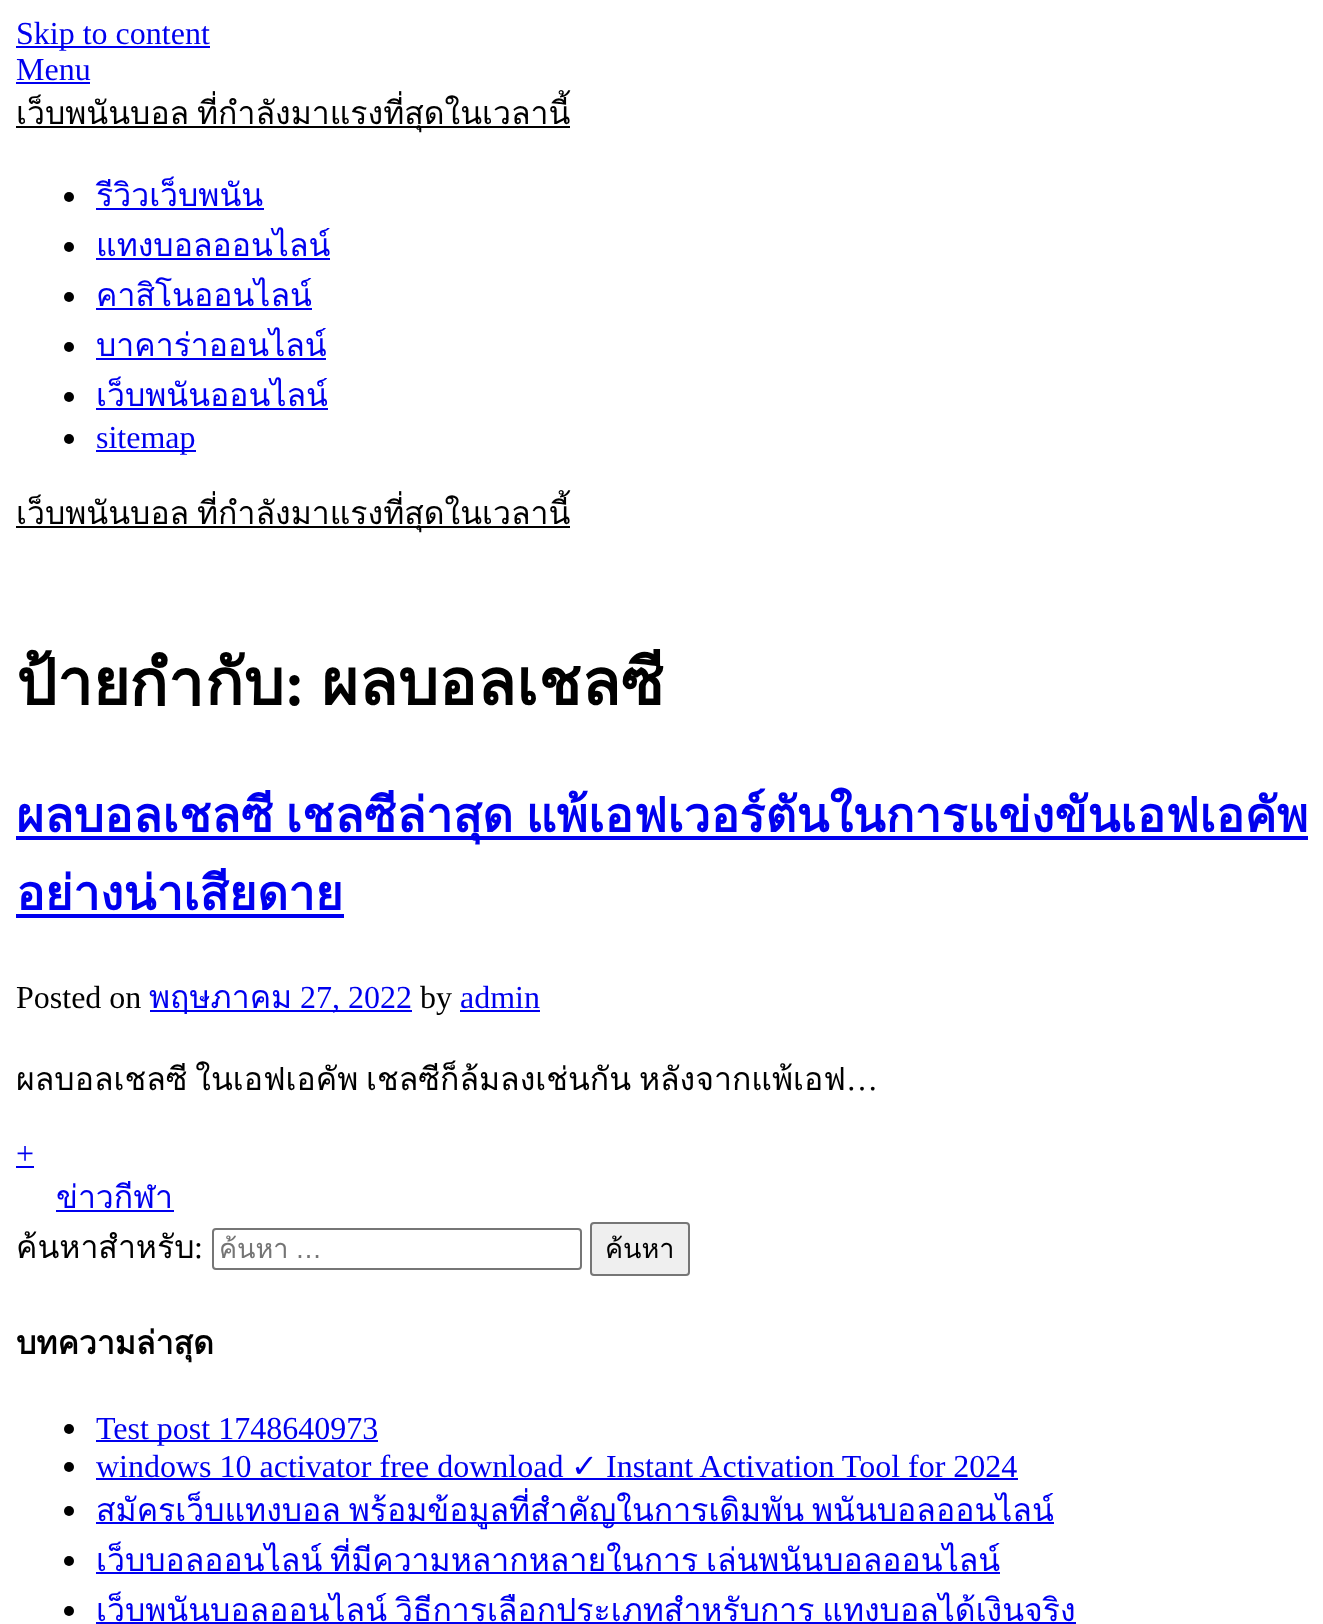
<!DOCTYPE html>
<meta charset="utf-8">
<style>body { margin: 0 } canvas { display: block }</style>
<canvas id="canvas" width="1323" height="1624"></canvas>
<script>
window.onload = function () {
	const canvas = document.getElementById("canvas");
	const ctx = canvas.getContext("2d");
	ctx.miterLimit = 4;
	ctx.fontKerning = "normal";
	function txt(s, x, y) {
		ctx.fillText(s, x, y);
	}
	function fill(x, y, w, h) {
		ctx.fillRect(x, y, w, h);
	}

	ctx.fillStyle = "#FFFFFF";
	fill(0, 0, 1323, 1624);
	ctx.fillStyle = "#0000EE";
	fill(16, 46, 194, 2);
	fill(16, 82, 74, 2);
	ctx.fillStyle = "#000000";
	fill(16, 126, 554, 2);
	ctx.beginPath();
	ctx.arc(69, 197, 5, 0, Math.PI * 2);
	ctx.fill();
	ctx.fillStyle = "#0000EE";
	fill(96, 208, 168, 2);
	ctx.fillStyle = "#000000";
	ctx.beginPath();
	ctx.arc(69, 247, 5, 0, Math.PI * 2);
	ctx.fill();
	ctx.fillStyle = "#0000EE";
	fill(96, 258, 234, 2);
	ctx.fillStyle = "#000000";
	ctx.beginPath();
	ctx.arc(69, 297, 5, 0, Math.PI * 2);
	ctx.fill();
	ctx.fillStyle = "#0000EE";
	fill(96, 308, 216, 2);
	ctx.fillStyle = "#000000";
	ctx.beginPath();
	ctx.arc(69, 347, 5, 0, Math.PI * 2);
	ctx.fill();
	ctx.fillStyle = "#0000EE";
	fill(96, 358, 230, 2);
	ctx.fillStyle = "#000000";
	ctx.beginPath();
	ctx.arc(69, 397, 5, 0, Math.PI * 2);
	ctx.fill();
	ctx.fillStyle = "#0000EE";
	fill(96, 408, 232, 2);
	ctx.fillStyle = "#000000";
	ctx.beginPath();
	ctx.arc(69, 439, 5, 0, Math.PI * 2);
	ctx.fill();
	ctx.fillStyle = "#0000EE";
	fill(96, 450, 100, 2);
	ctx.fillStyle = "#000000";
	fill(16, 526, 554, 2);
	ctx.fillStyle = "#0000EE";
	fill(16, 836, 1292, 4);
	fill(16, 914, 328, 4);
	fill(150, 1010, 262, 2);
	fill(460, 1010, 80, 2);
	fill(16, 1166, 18, 2);
	fill(56, 1210, 118, 2);
	ctx.beginPath();
	ctx.roundRect(213, 1229, 368, 40, 3);
	ctx.strokeStyle = "#767676";
	ctx.lineWidth = 2;
	ctx.stroke();
	ctx.fillStyle = "#EFEFEF";
	ctx.beginPath();
	ctx.roundRect(591, 1223, 98, 52, 3);
	ctx.fill();
	ctx.stroke();
	ctx.fillStyle = "#000000";
	ctx.beginPath();
	ctx.arc(69, 1429, 5, 0, Math.PI * 2);
	ctx.fill();
	ctx.fillStyle = "#0000EE";
	fill(96, 1440, 282, 2);
	ctx.fillStyle = "#000000";
	ctx.beginPath();
	ctx.arc(69, 1467, 5, 0, Math.PI * 2);
	ctx.fill();
	ctx.fillStyle = "#0000EE";
	fill(96, 1478, 922, 2);
	ctx.fillStyle = "#000000";
	ctx.beginPath();
	ctx.arc(69, 1511, 5, 0, Math.PI * 2);
	ctx.fill();
	ctx.fillStyle = "#0000EE";
	fill(96, 1522, 958, 2);
	ctx.fillStyle = "#000000";
	ctx.beginPath();
	ctx.arc(69, 1561, 5, 0, Math.PI * 2);
	ctx.fill();
	ctx.fillStyle = "#0000EE";
	fill(96, 1572, 904, 2);
	ctx.fillStyle = "#000000";
	ctx.beginPath();
	ctx.arc(69, 1611, 5, 0, Math.PI * 2);
	ctx.fill();
	ctx.fillStyle = "#0000EE";
	fill(96, 1622, 980, 2);
	ctx.font = "32px Liberation Serif";
	txt("Skip to content", 16, 44);
	txt("Menu", 16, 80);
	ctx.wordSpacing = "-3px";
	ctx.font = "32px Loma";
	ctx.fillStyle = "#000000";
	txt("เว็บพนันบอล ที่กำลังมาแรงที่สุดในเวลานี้", 16, 124);
	ctx.wordSpacing = "0px";
	ctx.fillStyle = "#0000EE";
	txt("รีวิวเว็บพนัน", 96, 206);
	txt("แทงบอลออนไลน์", 96, 256);
	txt("คาสิโนออนไลน์", 96, 306);
	txt("บาคาร่าออนไลน์", 96, 356);
	txt("เว็บพนันออนไลน์", 96, 406);
	ctx.font = "32px Liberation Serif";
	txt("sitemap", 96, 448);
	ctx.wordSpacing = "-3px";
	ctx.font = "32px Loma";
	ctx.fillStyle = "#000000";
	txt("เว็บพนันบอล ที่กำลังมาแรงที่สุดในเวลานี้", 16, 524);
	ctx.wordSpacing = "0px";
	ctx.font = "bold 64px Loma";
	txt("ป้ายกำกับ", 16, 705);
	ctx.font = "bold 64px Liberation Serif";
	txt(":", 284, 705);
	ctx.font = "bold 64px Loma";
	txt("ผลบอลเชลซี", 321, 705);
	ctx.wordSpacing = "-4px";
	ctx.font = "bold 48px Loma";
	ctx.fillStyle = "#0000EE";
	txt("ผลบอลเชลซี เชลซีล่าสุด แพ้เอฟเวอร์ตันในการแข่งขันเอฟเอคัพ", 16, 832);
	ctx.wordSpacing = "0px";
	txt("อย่างน่าเสียดาย", 16, 910);
	ctx.font = "32px Liberation Serif";
	ctx.fillStyle = "#000000";
	txt("Posted on", 16, 1008);
	ctx.font = "32px Loma";
	ctx.fillStyle = "#0000EE";
	txt("พฤษภาคม", 149, 1008);
	ctx.font = "32px Liberation Serif";
	txt("27, 2022", 300, 1008);
	ctx.fillStyle = "#000000";
	txt("by", 420, 1008);
	ctx.fillStyle = "#0000EE";
	txt("admin", 460, 1008);
	ctx.wordSpacing = "-3px";
	ctx.font = "32px Loma";
	ctx.fillStyle = "#000000";
	txt("ผลบอลเชลซี ในเอฟเอคัพ เชลซีก็ล้มลงเช่นกัน หลังจากแพ้เอฟ", 16, 1090);
	ctx.wordSpacing = "0px";
	ctx.font = "32px Liberation Serif";
	txt("…", 846, 1090);
	ctx.fillStyle = "#0000EE";
	txt("+", 16, 1164);
	ctx.font = "32px Loma";
	txt("ข่าวกีฬา", 56, 1208);
	ctx.fillStyle = "#000000";
	txt("ค้นหาสำหรับ", 16, 1258);
	ctx.font = "32px Liberation Serif";
	txt(":", 194, 1258);
	ctx.save();
	ctx.beginPath();
	ctx.rect(220, 1232, 328, 34);
	ctx.clip();
	ctx.font = "27px Loma";
	ctx.fillStyle = "#757575";
	txt("ค้นหา", 219, 1258);
	ctx.restore();
	ctx.font = "27px Liberation Sans";
	ctx.fillStyle = "#757575";
	txt("…", 295, 1258);
	ctx.font = "27px Loma";
	ctx.fillStyle = "#000000";
	txt("ค้นหา", 605, 1258);
	ctx.font = "bold 32px Loma";
	txt("บทความล่าสุด", 16, 1354);
	ctx.font = "32px Liberation Serif";
	ctx.fillStyle = "#0000EE";
	txt("Test post 1748640973", 96, 1439);
	txt("windows 10 activator free download", 96, 1477);
	ctx.font = "32px DejaVu Sans";
	txt("✓", 571, 1477);
	ctx.font = "32px Liberation Serif";
	txt("Instant Activation Tool for 2024", 606, 1477);
	ctx.wordSpacing = "-3px";
	ctx.font = "32px Loma";
	txt("สมัครเว็บแทงบอล พร้อมข้อมูลที่สำคัญในการเดิมพัน พนันบอลออนไลน์", 96, 1521);
	txt("เว็บบอลออนไลน์ ที่มีความหลากหลายในการ เล่นพนันบอลออนไลน์", 96, 1571);
	txt("เว็บพนันบอลออนไลน์ วิธีการเลือกประเภทสำหรับการ แทงบอลได้เงินจริง", 96, 1621);
};
</script>
